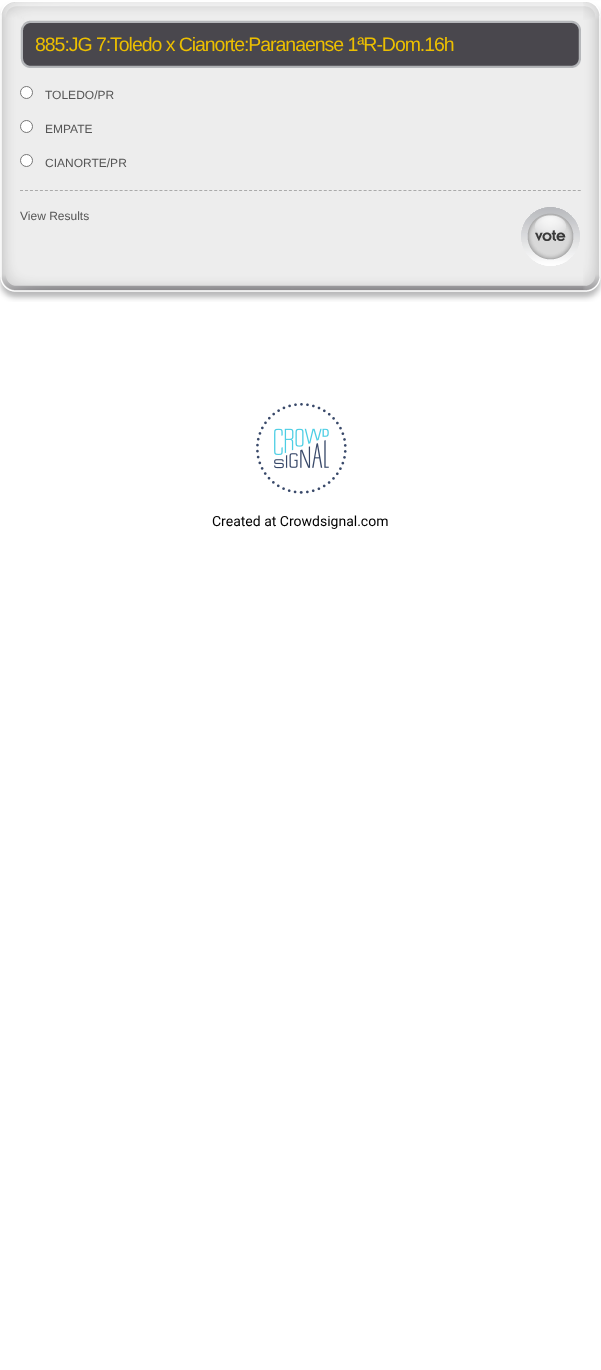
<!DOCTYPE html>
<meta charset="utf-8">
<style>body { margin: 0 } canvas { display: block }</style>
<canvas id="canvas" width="601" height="1370"></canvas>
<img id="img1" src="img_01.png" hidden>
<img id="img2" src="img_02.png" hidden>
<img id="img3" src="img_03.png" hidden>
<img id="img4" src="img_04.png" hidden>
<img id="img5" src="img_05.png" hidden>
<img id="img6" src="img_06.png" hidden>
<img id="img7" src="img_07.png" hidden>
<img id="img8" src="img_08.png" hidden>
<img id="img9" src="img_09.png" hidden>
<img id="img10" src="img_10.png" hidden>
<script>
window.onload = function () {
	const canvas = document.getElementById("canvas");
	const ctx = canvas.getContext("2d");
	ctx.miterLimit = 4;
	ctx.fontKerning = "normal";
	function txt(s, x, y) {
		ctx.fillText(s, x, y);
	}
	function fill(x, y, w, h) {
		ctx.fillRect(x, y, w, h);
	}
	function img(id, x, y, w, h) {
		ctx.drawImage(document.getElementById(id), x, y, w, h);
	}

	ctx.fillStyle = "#FFFFFF";
	fill(0, 0, 601, 1370);
	img("img1", 0, 20, 583, 282);
	img("img2", 583, 20, 18, 282);
	img("img3", 0, 0, 601, 20);
	img("img4", 583, 2, 18, 18);
	img("img5", 20, 40, 552, 28);
	img("img6", 572, 40, 9, 28);
	img("img7", 20, 20, 552, 20);
	img("img8", 572, 20, 9, 20);
	ctx.beginPath();
	ctx.moveTo(20, 190.5);
	ctx.lineTo(581, 190.5);
	ctx.strokeStyle = "#AAAAAA";
	ctx.setLineDash([3, 1.98]);
	ctx.stroke();
	ctx.beginPath();
	ctx.arc(26.5, 92.5, 6, 0, Math.PI * 2);
	ctx.fill();
	ctx.strokeStyle = "#767676";
	ctx.setLineDash([]);
	ctx.stroke();
	ctx.beginPath();
	ctx.arc(26.5, 126.5, 6, 0, Math.PI * 2);
	ctx.fill();
	ctx.stroke();
	ctx.beginPath();
	ctx.arc(26.5, 160.5, 6, 0, Math.PI * 2);
	ctx.fill();
	ctx.stroke();
	img("img9", 521, 207, 59, 59);
	img("img10", 256, 403, 91, 91);
	ctx.letterSpacing = "-1.05px";
	ctx.font = "19.5px Liberation Sans";
	ctx.fillStyle = "#ECBF00";
	txt("885:JG 7:Toledo x Cianorte:Paranaense 1ªR-Dom.16h", 35, 51);
	ctx.letterSpacing = "0px";
	ctx.font = "12px Liberation Sans";
	ctx.fillStyle = "#555555";
	txt("TOLEDO/PR", 45, 99);
	txt("EMPATE", 45, 133);
	txt("CIANORTE/PR", 45, 167);
	txt("View Results", 20, 220);
	ctx.font = "14px Roboto";
	ctx.fillStyle = "#000000";
	txt("Created at Crowdsignal.com", 212, 526);
};
</script>
